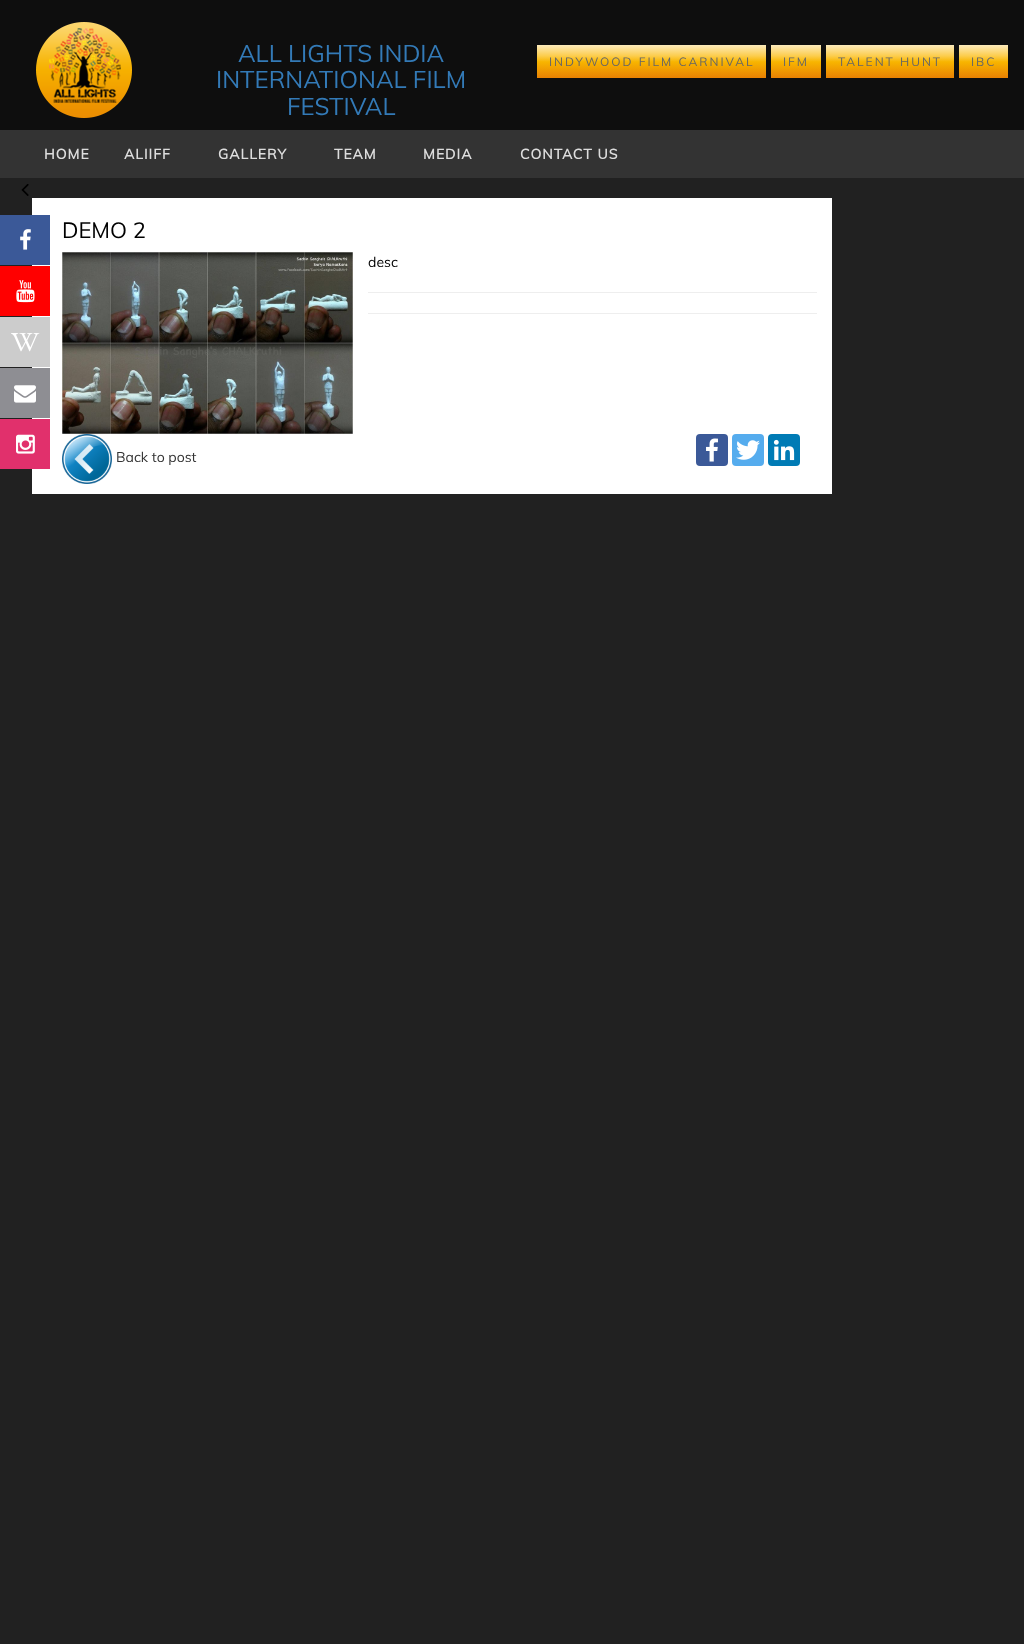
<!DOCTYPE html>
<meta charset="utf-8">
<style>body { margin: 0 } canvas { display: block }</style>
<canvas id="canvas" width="1024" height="1644"></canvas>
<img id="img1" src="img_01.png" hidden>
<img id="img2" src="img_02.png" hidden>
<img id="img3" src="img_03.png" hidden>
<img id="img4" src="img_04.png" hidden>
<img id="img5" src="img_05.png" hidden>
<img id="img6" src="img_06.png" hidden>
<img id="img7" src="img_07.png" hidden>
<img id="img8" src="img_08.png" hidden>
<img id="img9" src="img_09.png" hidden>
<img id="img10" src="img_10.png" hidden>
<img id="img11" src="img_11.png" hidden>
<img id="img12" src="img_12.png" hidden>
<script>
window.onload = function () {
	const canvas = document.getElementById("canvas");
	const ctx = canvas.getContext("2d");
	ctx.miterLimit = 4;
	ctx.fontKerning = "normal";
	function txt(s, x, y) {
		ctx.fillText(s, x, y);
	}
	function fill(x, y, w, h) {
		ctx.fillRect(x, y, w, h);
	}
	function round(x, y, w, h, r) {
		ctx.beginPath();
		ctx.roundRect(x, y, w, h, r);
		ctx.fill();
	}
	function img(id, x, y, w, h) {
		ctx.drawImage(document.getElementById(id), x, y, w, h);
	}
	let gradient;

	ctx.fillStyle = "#212121";
	fill(0, 0, 1024, 1644);
	ctx.fillStyle = "#0E0E0E";
	fill(0, 0, 1024, 130);
	img("img1", 36, 22, 96, 96);
	gradient = ctx.createLinearGradient(652, 45, 652, 78);
	gradient.addColorStop(0, "#FCEABB");
	gradient.addColorStop(0.33, "#FCCD4D");
	gradient.addColorStop(0.51, "#F8B500");
	gradient.addColorStop(1, "#E88103");
	ctx.fillStyle = gradient;
	fill(537, 45, 229, 33);
	gradient = ctx.createLinearGradient(796, 45, 796, 78);
	gradient.addColorStop(0, "#FCEABB");
	gradient.addColorStop(0.33, "#FCCD4D");
	gradient.addColorStop(0.51, "#F8B500");
	gradient.addColorStop(1, "#E88103");
	ctx.fillStyle = gradient;
	fill(771, 45, 50, 33);
	gradient = ctx.createLinearGradient(890, 45, 890, 78);
	gradient.addColorStop(0, "#FCEABB");
	gradient.addColorStop(0.33, "#FCCD4D");
	gradient.addColorStop(0.51, "#F8B500");
	gradient.addColorStop(1, "#E88103");
	ctx.fillStyle = gradient;
	fill(826, 45, 128, 33);
	gradient = ctx.createLinearGradient(984, 45, 984, 78);
	gradient.addColorStop(0, "#FCEABB");
	gradient.addColorStop(0.33, "#FCCD4D");
	gradient.addColorStop(0.51, "#F8B500");
	gradient.addColorStop(1, "#E88103");
	ctx.fillStyle = gradient;
	fill(959, 45, 49, 33);
	ctx.fillStyle = "#333333";
	fill(0, 130, 1024, 48);
	img("img2", 21, 184, 8, 12);
	ctx.fillStyle = "#FFFFFF";
	fill(32, 198, 800, 296);
	ctx.fillStyle = "#3B5998";
	fill(0, 215, 50, 50);
	img("img3", 20, 229, 11, 21);
	ctx.fillStyle = "#FF0000";
	fill(0, 266, 50, 50);
	img("img4", 16, 280, 19, 23);
	ctx.fillStyle = "#CCCCCC";
	fill(0, 317, 50, 50);
	img("img5", 11, 333, 29, 19);
	ctx.fillStyle = "#8E8E93";
	fill(0, 368, 50, 50);
	img("img6", 14, 385, 22, 18);
	ctx.fillStyle = "#E1306C";
	fill(0, 419, 50, 50);
	img("img7", 16, 434, 19, 20);
	img("img8", 62, 252, 291, 182);
	ctx.fillStyle = "#EEEEEE";
	fill(368, 292, 449, 1);
	fill(368, 313, 449, 1);
	img("img9", 62, 434, 50, 50);
	ctx.fillStyle = "#3B5998";
	round(696, 434, 32, 32, 4);
	img("img10", 706, 438, 12, 24);
	ctx.fillStyle = "#55ACEE";
	round(732, 434, 32, 32, 4);
	img("img11", 736, 440, 24, 20);
	ctx.fillStyle = "#007BB5";
	round(768, 434, 32, 32, 4);
	img("img12", 773, 439, 22, 22);
	ctx.font = "24px Muli";
	ctx.fillStyle = "#337AB7";
	txt("ALL LIGHTS INDIA", 238, 62);
	txt("INTERNATIONAL FILM", 216, 88);
	txt("FESTIVAL", 287, 115);
	ctx.letterSpacing = "2px";
	ctx.font = "12px Muli";
	ctx.fillStyle = "#666666";
	txt("INDYWOOD FILM CARNIVAL", 549, 66);
	txt("IFM", 783, 66);
	txt("TALENT HUNT", 838, 66);
	txt("IBC", 971, 66);
	ctx.letterSpacing = "1px";
	ctx.font = "bold 14px Muli";
	ctx.fillStyle = "#DDDDDD";
	txt("HOME", 44, 159);
	txt("ALIIFF", 124, 159);
	txt("GALLERY", 218, 159);
	txt("TEAM", 334, 159);
	txt("MEDIA", 423, 159);
	txt("CONTACT US", 520, 159);
	ctx.letterSpacing = "0px";
	ctx.font = "22px Muli";
	ctx.fillStyle = "#000000";
	txt("DEMO 2", 62, 238);
	ctx.font = "14px Muli";
	txt("desc", 368, 267);
	ctx.fillStyle = "#333333";
	txt("Back to post", 116, 462);
};
</script>
